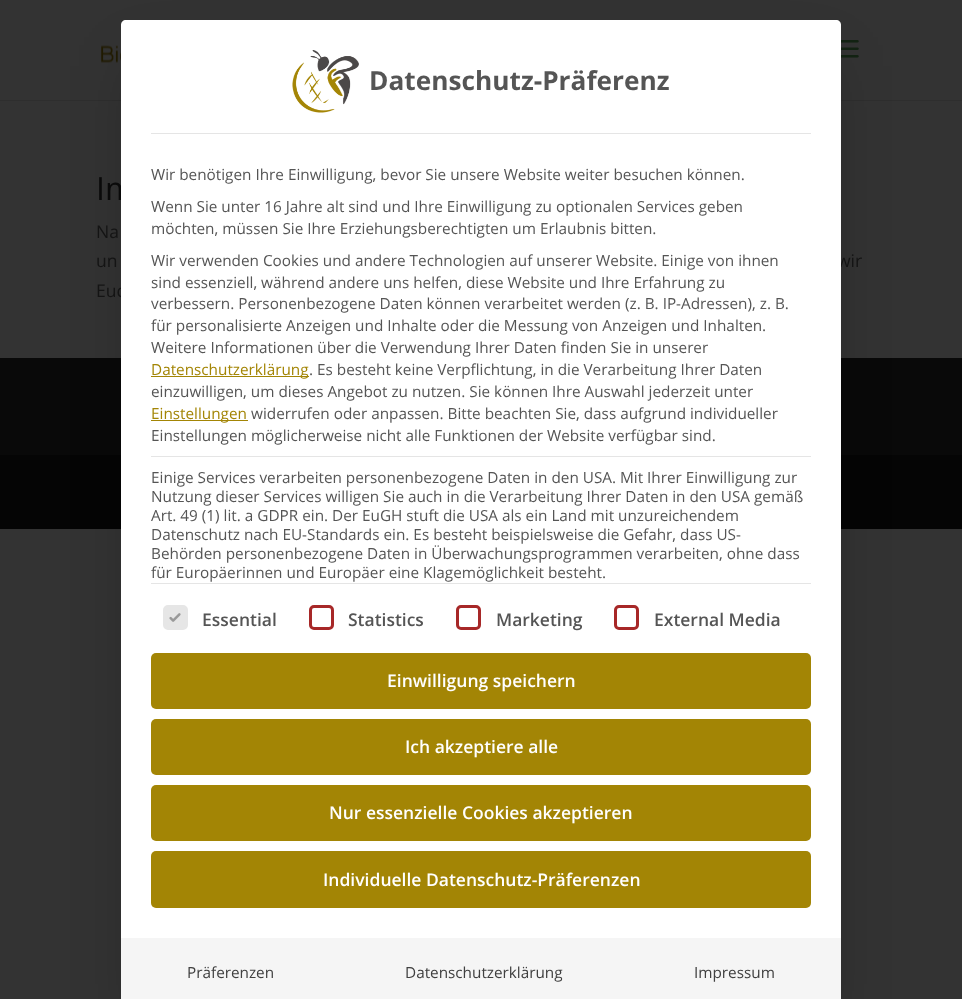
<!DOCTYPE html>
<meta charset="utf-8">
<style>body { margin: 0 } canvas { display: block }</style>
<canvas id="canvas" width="962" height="999"></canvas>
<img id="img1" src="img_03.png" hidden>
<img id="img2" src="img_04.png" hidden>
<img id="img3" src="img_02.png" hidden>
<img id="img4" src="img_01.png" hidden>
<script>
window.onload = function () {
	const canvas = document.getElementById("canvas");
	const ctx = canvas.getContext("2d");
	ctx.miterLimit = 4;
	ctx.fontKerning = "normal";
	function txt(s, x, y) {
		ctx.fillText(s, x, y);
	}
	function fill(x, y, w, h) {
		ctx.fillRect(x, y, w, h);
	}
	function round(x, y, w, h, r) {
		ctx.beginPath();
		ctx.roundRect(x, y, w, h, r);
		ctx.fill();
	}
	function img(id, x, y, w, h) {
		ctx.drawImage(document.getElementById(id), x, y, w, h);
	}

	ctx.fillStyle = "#333333";
	fill(0, 0, 962, 999);
	ctx.fillStyle = "#2E2E2E";
	ctx.beginPath();
	ctx.moveTo(0, 100);
	ctx.lineTo(0, 101);
	ctx.lineTo(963, 101);
	ctx.lineTo(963, 1);
	ctx.lineTo(962, 1);
	ctx.lineTo(962, 100);
	ctx.closePath();
	ctx.fill();
	img("img1", 101, 45, 20, 18);
	img("img2", 841, 40, 18, 18);
	ctx.fillStyle = "#090909";
	fill(0, 358, 962, 97);
	ctx.fillStyle = "#050505";
	fill(0, 455, 962, 74);
	ctx.fillStyle = "rgba(0, 0, 0, 0.25)";
	ctx.filter = "blur(31px)";
	ctx.beginPath();
	ctx.rect(136, 66, 690, 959);
	ctx.fill();
	ctx.filter = "none";
	ctx.font = "32px Open Sans";
	ctx.fillStyle = "#0A0A0A";
	txt("Im", 96, 200);
	ctx.font = "17.5px Open Sans";
	ctx.fillStyle = "#141414";
	txt("Na", 96, 238);
	txt("un", 96, 267);
	txt("wir", 837, 267);
	txt("Euc", 96, 297);
	ctx.fillStyle = "#FFFFFF";
	ctx.beginPath();
	ctx.moveTo(126, 20);
	ctx.lineTo(836, 20);
	ctx.bezierCurveTo(839, 20, 841, 22, 841, 25);
	ctx.lineTo(841, 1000);
	ctx.lineTo(121, 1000);
	ctx.lineTo(121, 25);
	ctx.bezierCurveTo(121, 22, 123, 20, 126, 20);
	ctx.closePath();
	ctx.fill();
	ctx.font = "600 17.5px Open Sans";
	ctx.fillStyle = "#555555";
	txt("External Media", 654, 626);
	ctx.beginPath();
	ctx.roundRect(615.5, 606.5, 22, 22, 3.5);
	ctx.strokeStyle = "#A72828";
	ctx.lineWidth = 3;
	ctx.stroke();
	txt("Marketing", 496, 626);
	ctx.beginPath();
	ctx.roundRect(457.5, 606.5, 22, 22, 3.5);
	ctx.stroke();
	txt("Statistics", 348, 626);
	ctx.beginPath();
	ctx.roundRect(310.5, 606.5, 22, 22, 3.5);
	ctx.stroke();
	ctx.fillStyle = "#E6E6E6";
	ctx.beginPath();
	ctx.roundRect(164.5, 606.5, 22, 22, 3.5);
	ctx.fill();
	ctx.strokeStyle = "#E6E6E6";
	ctx.stroke();
	img("img3", 169, 613, 12, 9);
	ctx.fillStyle = "#555555";
	txt("Essential", 202, 626);
	ctx.fillStyle = "#A38505";
	round(151, 851, 660, 57, 5);
	ctx.fillStyle = "#FFFFFF";
	txt("Individuelle Datenschutz-Präferenzen", 323, 886);
	ctx.fillStyle = "#A38505";
	round(151, 785, 660, 56, 5);
	ctx.fillStyle = "#FFFFFF";
	txt("Nur essenzielle Cookies akzeptieren", 329, 819);
	ctx.fillStyle = "#A38505";
	round(151, 719, 660, 56, 5);
	ctx.fillStyle = "#FFFFFF";
	txt("Ich akzeptiere alle", 405, 753);
	ctx.fillStyle = "#A38505";
	round(151, 653, 660, 56, 5);
	ctx.fillStyle = "#FFFFFF";
	txt("Einwilligung speichern", 387, 687);
	ctx.font = "15.3px Open Sans";
	ctx.fillStyle = "#555555";
	txt("für Europäerinnen und Europäer eine Klagemöglichkeit besteht.", 151, 578);
	txt("Behörden personenbezogene Daten in Überwachungsprogrammen verarbeiten, ohne dass", 151, 559);
	txt("Datenschutz nach EU-Standards ein. Es besteht beispielsweise die Gefahr, dass US-", 151, 540);
	txt("Art. 49 (1) lit. a GDPR ein. Der EuGH stuft die USA als ein Land mit unzureichendem", 151, 521);
	txt("Nutzung dieser Services willigen Sie auch in die Verarbeitung Ihrer Daten in den USA gemäß", 151, 502);
	txt("Einige Services verarbeiten personenbezogene Daten in den USA. Mit Ihrer Einwilligung zur", 151, 483);
	txt("Einstellungen möglicherweise nicht alle Funktionen der Website verfügbar sind.", 151, 441);
	txt("widerrufen oder anpassen. Bitte beachten Sie, dass aufgrund individueller", 251, 419);
	ctx.fillStyle = "#A38505";
	fill(151, 420, 97, 1);
	txt("Einstellungen", 151, 419);
	ctx.fillStyle = "#555555";
	txt("einzuwilligen, um dieses Angebot zu nutzen. Sie können Ihre Auswahl jederzeit unter", 151, 397);
	txt(". Es besteht keine Verpflichtung, in die Verarbeitung Ihrer Daten", 309, 375);
	ctx.fillStyle = "#A38505";
	fill(151, 376, 158, 1);
	txt("Datenschutzerklärung", 151, 375);
	ctx.fillStyle = "#555555";
	txt("Weitere Informationen über die Verwendung Ihrer Daten finden Sie in unserer", 151, 353);
	txt("für personalisierte Anzeigen und Inhalte oder die Messung von Anzeigen und Inhalten.", 151, 331);
	txt("verbessern. Personenbezogene Daten können verarbeitet werden (z. B. IP-Adressen), z. B.", 151, 309);
	txt("sind essenziell, während andere uns helfen, diese Website und Ihre Erfahrung zu", 151, 288);
	txt("Wir verwenden Cookies und andere Technologien auf unserer Website. Einige von ihnen", 151, 266);
	txt("möchten, müssen Sie Ihre Erziehungsberechtigten um Erlaubnis bitten.", 151, 234);
	txt("Wenn Sie unter 16 Jahre alt sind und Ihre Einwilligung zu optionalen Services geben", 151, 212);
	txt("Wir benötigen Ihre Einwilligung, bevor Sie unsere Website weiter besuchen können.", 151, 180);
	ctx.fillStyle = "#E5E5E5";
	fill(151, 583, 660, 1);
	fill(151, 456, 660, 1);
	ctx.font = "bold 26.25px Open Sans";
	ctx.fillStyle = "#555555";
	txt("Datenschutz-Präferenz", 369, 90);
	img("img4", 292, 50, 67, 63);
	ctx.fillStyle = "#E5E5E5";
	fill(151, 133, 660, 1);
	ctx.fillStyle = "#F5F5F5";
	fill(121, 938, 720, 61);
	ctx.font = "15.3px Open Sans";
	ctx.fillStyle = "#404040";
	txt("Impressum", 694, 978);
	txt("Datenschutzerklärung", 405, 978);
	txt("Präferenzen", 187, 978);
};
</script>
